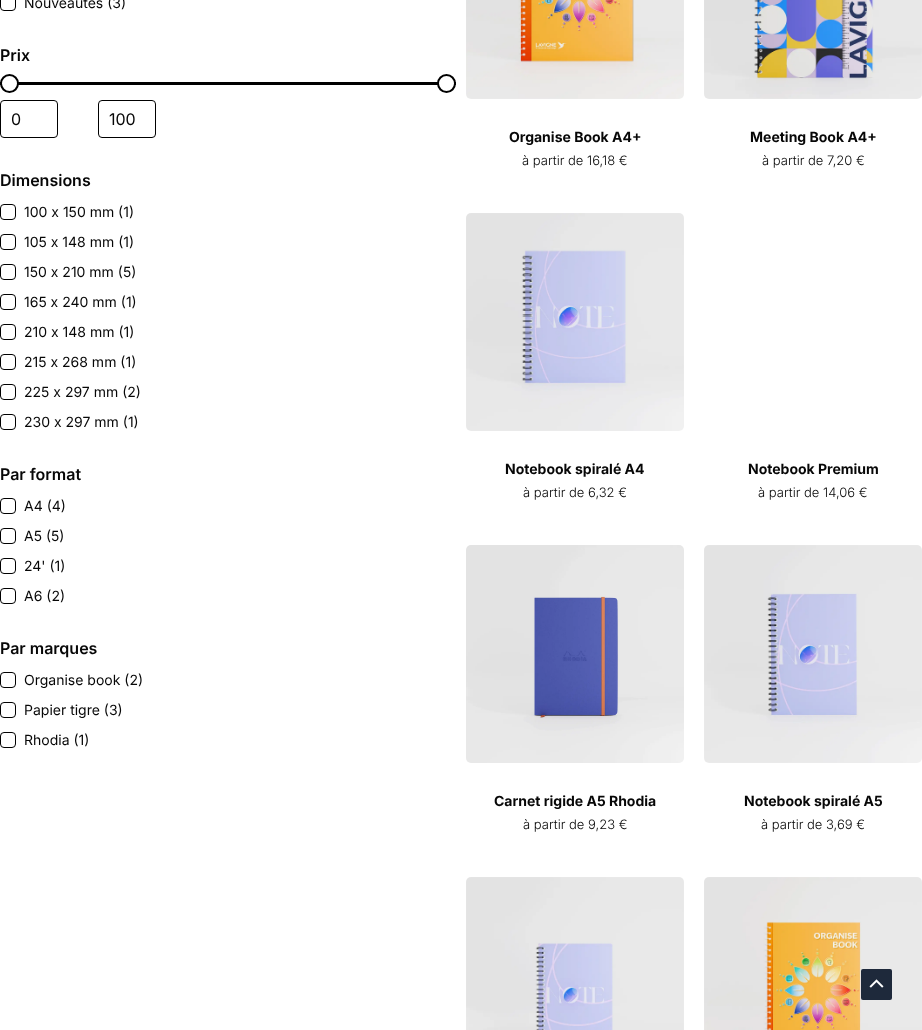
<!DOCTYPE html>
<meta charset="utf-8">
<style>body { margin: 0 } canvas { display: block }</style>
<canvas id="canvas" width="922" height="1030"></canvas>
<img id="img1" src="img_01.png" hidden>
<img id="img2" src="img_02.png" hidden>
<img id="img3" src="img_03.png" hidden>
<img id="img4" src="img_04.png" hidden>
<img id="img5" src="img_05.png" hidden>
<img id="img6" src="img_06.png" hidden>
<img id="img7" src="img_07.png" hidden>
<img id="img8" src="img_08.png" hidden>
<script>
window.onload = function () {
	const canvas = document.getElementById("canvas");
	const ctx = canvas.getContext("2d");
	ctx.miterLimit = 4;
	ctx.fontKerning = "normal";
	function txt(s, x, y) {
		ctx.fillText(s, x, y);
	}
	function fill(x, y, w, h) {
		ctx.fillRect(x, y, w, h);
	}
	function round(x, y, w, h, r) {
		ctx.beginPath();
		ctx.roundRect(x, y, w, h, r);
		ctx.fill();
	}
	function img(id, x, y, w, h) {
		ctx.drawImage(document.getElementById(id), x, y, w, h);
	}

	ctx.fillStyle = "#FFFFFF";
	fill(0, 0, 922, 1030);
	ctx.beginPath();
	ctx.roundRect(0.5, -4.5, 15, 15, 3.5);
	ctx.strokeStyle = "#000000";
	ctx.stroke();
	ctx.fillStyle = "#000000";
	fill(0, 82, 456, 3);
	ctx.fillStyle = "#FFFFFF";
	ctx.beginPath();
	ctx.arc(9.5, 83.5, 8.5, 0, Math.PI * 2);
	ctx.fill();
	ctx.lineWidth = 2;
	ctx.stroke();
	ctx.beginPath();
	ctx.arc(446.5, 83.5, 8.5, 0, Math.PI * 2);
	ctx.fill();
	ctx.stroke();
	ctx.beginPath();
	ctx.roundRect(0.5, 100.5, 57, 37, 3.5);
	ctx.lineWidth = 1;
	ctx.stroke();
	ctx.beginPath();
	ctx.roundRect(98.5, 100.5, 57, 37, 3.5);
	ctx.stroke();
	ctx.beginPath();
	ctx.roundRect(0.5, 204.5, 15, 15, 3.5);
	ctx.stroke();
	ctx.beginPath();
	ctx.roundRect(0.5, 234.5, 15, 15, 3.5);
	ctx.stroke();
	ctx.beginPath();
	ctx.roundRect(0.5, 264.5, 15, 15, 3.5);
	ctx.stroke();
	ctx.beginPath();
	ctx.roundRect(0.5, 294.5, 15, 15, 3.5);
	ctx.stroke();
	ctx.beginPath();
	ctx.roundRect(0.5, 324.5, 15, 15, 3.5);
	ctx.stroke();
	ctx.beginPath();
	ctx.roundRect(0.5, 354.5, 15, 15, 3.5);
	ctx.stroke();
	ctx.beginPath();
	ctx.roundRect(0.5, 384.5, 15, 15, 3.5);
	ctx.stroke();
	ctx.beginPath();
	ctx.roundRect(0.5, 414.5, 15, 15, 3.5);
	ctx.stroke();
	ctx.beginPath();
	ctx.roundRect(0.5, 498.5, 15, 15, 3.5);
	ctx.stroke();
	ctx.beginPath();
	ctx.roundRect(0.5, 528.5, 15, 15, 3.5);
	ctx.stroke();
	ctx.beginPath();
	ctx.roundRect(0.5, 558.5, 15, 15, 3.5);
	ctx.stroke();
	ctx.beginPath();
	ctx.roundRect(0.5, 588.5, 15, 15, 3.5);
	ctx.stroke();
	ctx.beginPath();
	ctx.roundRect(0.5, 672.5, 15, 15, 3.5);
	ctx.stroke();
	ctx.beginPath();
	ctx.roundRect(0.5, 702.5, 15, 15, 3.5);
	ctx.stroke();
	ctx.beginPath();
	ctx.roundRect(0.5, 732.5, 15, 15, 3.5);
	ctx.stroke();
	img("img1", 466, 0, 218, 99);
	img("img2", 704, 0, 218, 99);
	img("img3", 466, 213, 218, 218);
	img("img4", 466, 545, 218, 218);
	img("img5", 704, 545, 218, 218);
	img("img6", 466, 877, 218, 153);
	img("img7", 704, 877, 218, 153);
	ctx.fillStyle = "#1E293B";
	round(861, 969, 31, 31, 2);
	img("img8", 869, 979, 15, 9);
	ctx.font = "14px Inter";
	ctx.fillStyle = "#070707";
	txt("Nouveautés (3)", 24, 8);
	ctx.font = "600 16px Inter";
	txt("Prix", 0, 61);
	ctx.font = "16px Inter";
	txt("0", 11, 125);
	txt("100", 109, 125);
	ctx.font = "600 16px Inter";
	txt("Dimensions", 0, 186);
	ctx.font = "14px Inter";
	txt("100 x 150 mm (1)", 24, 217);
	txt("105 x 148 mm (1)", 24, 247);
	txt("150 x 210 mm (5)", 24, 277);
	txt("165 x 240 mm (1)", 24, 307);
	txt("210 x 148 mm (1)", 24, 337);
	txt("215 x 268 mm (1)", 24, 367);
	txt("225 x 297 mm (2)", 24, 397);
	txt("230 x 297 mm (1)", 24, 427);
	ctx.font = "600 16px Inter";
	txt("Par format", 0, 480);
	ctx.font = "14px Inter";
	txt("A4 (4)", 24, 511);
	txt("A5 (5)", 24, 541);
	txt("24' (1)", 24, 571);
	txt("A6 (2)", 24, 601);
	ctx.font = "600 16px Inter";
	txt("Par marques", 0, 654);
	ctx.font = "14px Inter";
	txt("Organise book (2)", 24, 685);
	txt("Papier tigre (3)", 24, 715);
	txt("Rhodia (1)", 24, 745);
	ctx.font = "bold 14px Inter";
	txt("Organise Book A4+", 509, 142);
	ctx.font = "300 13px Inter";
	txt("à partir de 16,18 €", 522, 165);
	ctx.font = "bold 14px Inter";
	txt("Meeting Book A4+", 750, 142);
	ctx.font = "300 13px Inter";
	txt("à partir de 7,20 €", 762, 165);
	ctx.font = "bold 14px Inter";
	txt("Notebook spiralé A4", 505, 474);
	ctx.font = "300 13px Inter";
	txt("à partir de 6,32 €", 523, 497);
	ctx.font = "bold 14px Inter";
	txt("Notebook Premium", 748, 474);
	ctx.font = "300 13px Inter";
	txt("à partir de 14,06 €", 758, 497);
	ctx.font = "bold 14px Inter";
	txt("Carnet rigide A5 Rhodia", 494, 806);
	ctx.font = "300 13px Inter";
	txt("à partir de 9,23 €", 523, 829);
	ctx.font = "bold 14px Inter";
	txt("Notebook spiralé A5", 744, 806);
	ctx.font = "300 13px Inter";
	txt("à partir de 3,69 €", 761, 829);
};
</script>
